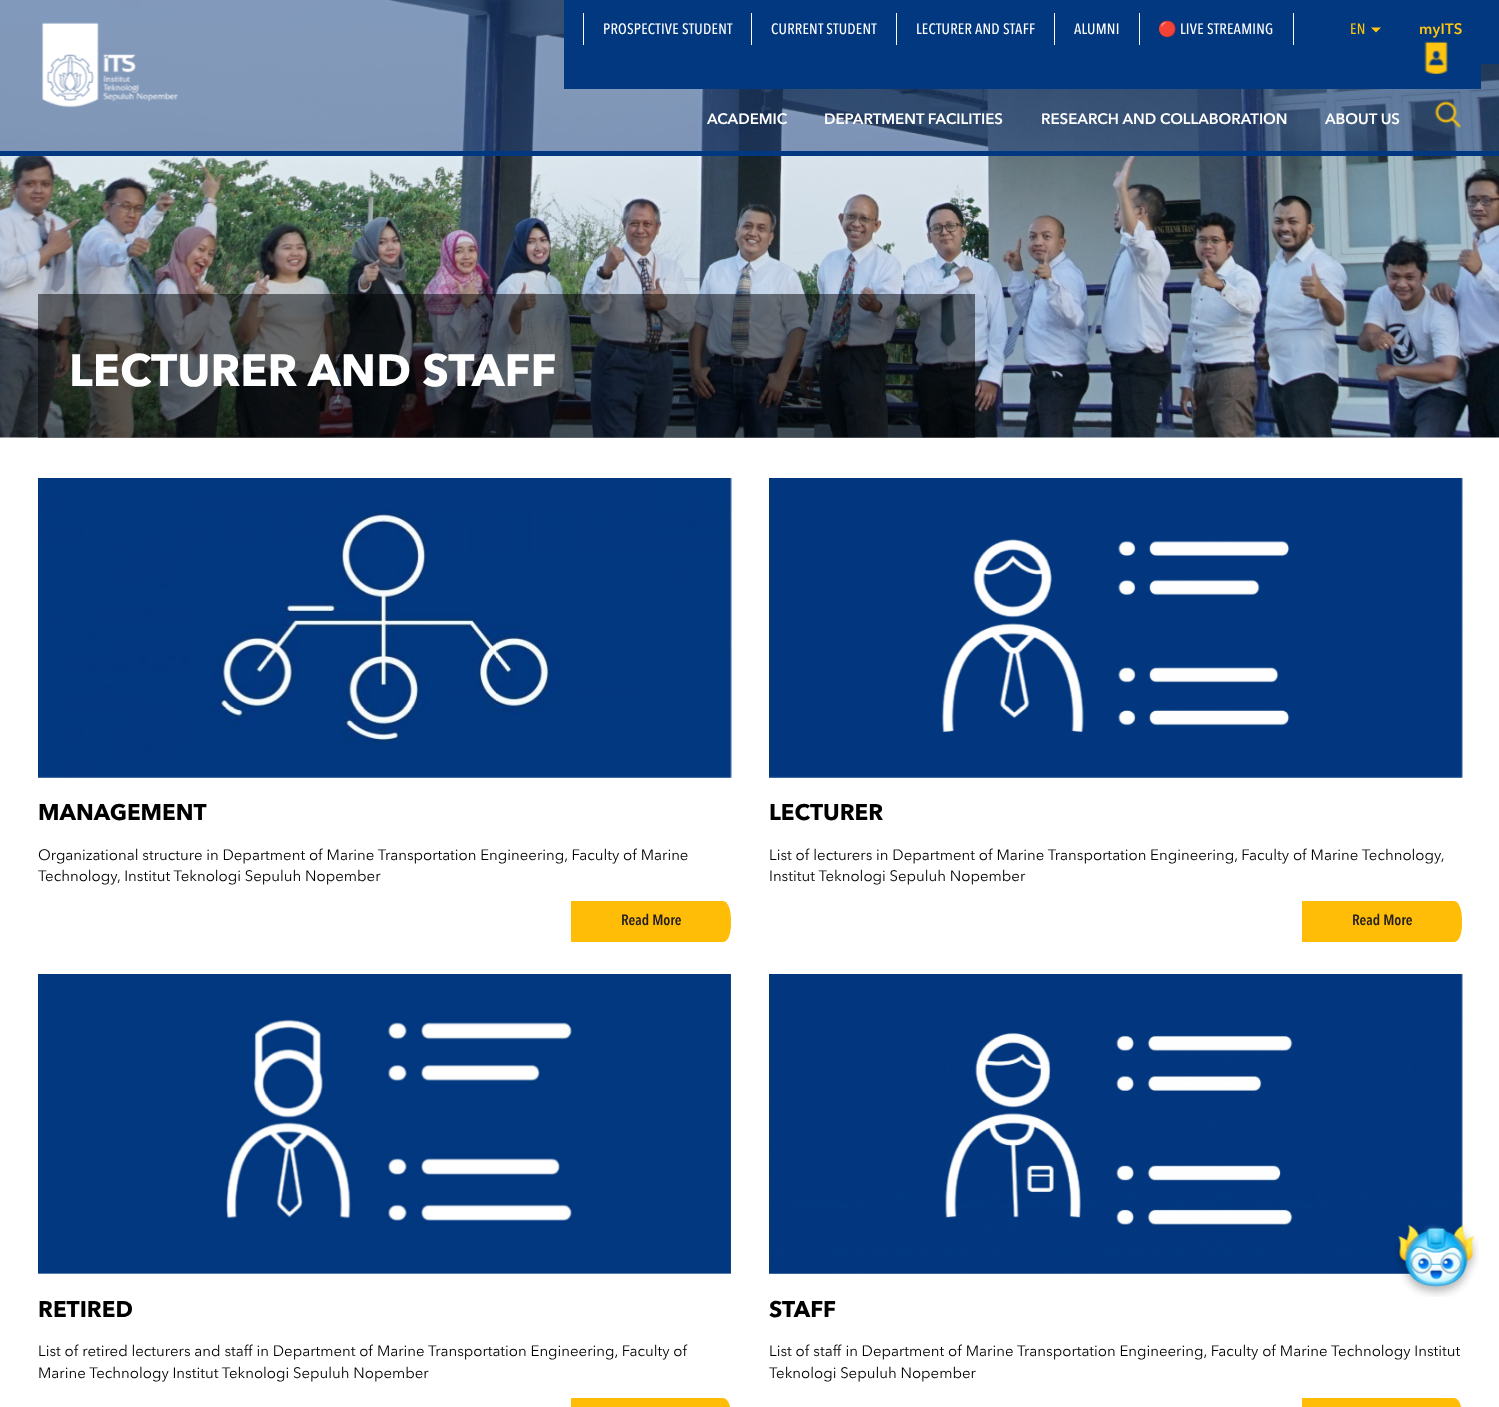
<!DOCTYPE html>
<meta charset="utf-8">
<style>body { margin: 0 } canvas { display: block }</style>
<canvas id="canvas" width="1499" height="1407"></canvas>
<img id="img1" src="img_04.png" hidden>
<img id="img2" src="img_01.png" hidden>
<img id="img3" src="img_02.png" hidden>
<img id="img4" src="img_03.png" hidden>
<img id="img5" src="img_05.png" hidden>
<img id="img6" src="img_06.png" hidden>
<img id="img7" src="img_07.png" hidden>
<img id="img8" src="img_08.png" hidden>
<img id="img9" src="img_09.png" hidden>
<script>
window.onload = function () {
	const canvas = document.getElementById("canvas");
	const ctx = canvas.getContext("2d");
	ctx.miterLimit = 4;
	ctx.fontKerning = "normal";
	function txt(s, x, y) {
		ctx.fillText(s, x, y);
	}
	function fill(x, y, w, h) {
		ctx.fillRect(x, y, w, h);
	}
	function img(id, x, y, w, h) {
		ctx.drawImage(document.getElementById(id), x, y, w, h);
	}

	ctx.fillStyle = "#FFFFFF";
	fill(0, 0, 1499, 1407);
	img("img1", 0, 0, 1499, 438);
	ctx.fillStyle = "rgba(32, 65, 127, 0.5)";
	fill(0, 0, 1499, 151);
	ctx.fillStyle = "#013880";
	fill(0, 151, 1499, 5);
	img("img2", 42, 22, 136, 86);
	fill(564, 0, 917, 89);
	ctx.fillStyle = "#FFFFFF";
	fill(751, 13, 1, 32);
	fill(583, 13, 1, 32);
	fill(896, 13, 1, 32);
	fill(1054, 13, 1, 32);
	fill(1139, 13, 1, 32);
	fill(1293, 13, 1, 32);
	ctx.fillStyle = "#FFC410";
	ctx.beginPath();
	ctx.moveTo(1371, 27.5);
	ctx.lineTo(1381, 27.5);
	ctx.lineTo(1376, 32.5);
	ctx.closePath();
	ctx.fill();
	img("img3", 1424, 41, 24, 33);
	ctx.fillStyle = "#013880";
	fill(1481, 0, 18, 64);
	img("img4", 1434, 100, 28, 28);
	ctx.fillStyle = "rgba(0, 0, 0, 0.5)";
	fill(38, 294, 937, 144);
	img("img5", 38, 478, 694, 300);
	ctx.fillStyle = "#FFBD07";
	ctx.beginPath();
	ctx.moveTo(571, 901);
	ctx.lineTo(723, 901);
	ctx.bezierCurveTo(728, 901, 731, 910, 731, 920);
	ctx.lineTo(731, 924);
	ctx.bezierCurveTo(731, 934, 728, 942, 723, 942);
	ctx.lineTo(571, 942);
	ctx.closePath();
	ctx.fill();
	img("img6", 38, 974, 693, 300);
	ctx.beginPath();
	ctx.moveTo(571, 1398);
	ctx.lineTo(723, 1398);
	ctx.bezierCurveTo(728, 1398, 731, 1406, 731, 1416);
	ctx.lineTo(731, 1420);
	ctx.bezierCurveTo(731, 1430, 728, 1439, 723, 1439);
	ctx.lineTo(571, 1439);
	ctx.closePath();
	ctx.fill();
	img("img7", 769, 478, 694, 300);
	ctx.beginPath();
	ctx.moveTo(1302, 901);
	ctx.lineTo(1454, 901);
	ctx.bezierCurveTo(1459, 901, 1462, 910, 1462, 920);
	ctx.lineTo(1462, 924);
	ctx.bezierCurveTo(1462, 934, 1459, 942, 1454, 942);
	ctx.lineTo(1302, 942);
	ctx.closePath();
	ctx.fill();
	img("img8", 769, 974, 694, 300);
	ctx.beginPath();
	ctx.moveTo(1302, 1398);
	ctx.lineTo(1454, 1398);
	ctx.bezierCurveTo(1459, 1398, 1462, 1406, 1462, 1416);
	ctx.lineTo(1462, 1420);
	ctx.bezierCurveTo(1462, 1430, 1459, 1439, 1454, 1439);
	ctx.lineTo(1302, 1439);
	ctx.closePath();
	ctx.fill();
	img("img9", 1394, 1224, 85, 73);
	ctx.letterSpacing = "0.25px";
	ctx.font = "500 15px Avenir Next";
	ctx.fillStyle = "#FFFFFF";
	txt("PROSPECTIVE STUDENT", 603, 34);
	txt("CURRENT STUDENT", 771, 34);
	txt("LECTURER AND STAFF", 916, 34);
	txt("ALUMNI", 1074, 34);
	ctx.font = "15px Noto Color Emoji";
	txt("🔴", 1158, 34);
	ctx.font = "500 15px Avenir Next";
	txt("LIVE STREAMING", 1180, 34);
	ctx.fillStyle = "#FFC410";
	txt("EN", 1350, 34);
	ctx.font = "600 15px 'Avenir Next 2'";
	txt("myITS", 1419, 34);
	ctx.letterSpacing = "0px";
	ctx.fillStyle = "#FFFFFF";
	txt("ACADEMIC", 707, 124);
	txt("DEPARTMENT FACILITIES", 824, 124);
	txt("RESEARCH AND COLLABORATION", 1041, 124);
	txt("ABOUT US", 1325, 124);
	ctx.font = "bold 45px Avenir Next";
	txt("LECTURER AND STAFF", 69, 386);
	ctx.font = "bold 22.5px Avenir Next";
	ctx.fillStyle = "#000000";
	txt("MANAGEMENT", 38, 820);
	ctx.font = "15px Avenir Next";
	txt("Organizational structure in Department of Marine Transportation Engineering, Faculty of Marine", 38, 860);
	txt("Technology, Institut Teknologi Sepuluh Nopember", 38, 881);
	ctx.font = "600 15px Avenir Next";
	ctx.fillStyle = "#231F20";
	txt("Read More", 621, 925);
	ctx.font = "bold 22.5px Avenir Next";
	ctx.fillStyle = "#000000";
	txt("RETIRED", 38, 1317);
	ctx.font = "15px Avenir Next";
	txt("List of retired lecturers and staff in Department of Marine Transportation Engineering, Faculty of", 38, 1356);
	txt("Marine Technology Institut Teknologi Sepuluh Nopember", 38, 1378);
	ctx.font = "bold 22.5px Avenir Next";
	txt("LECTURER", 769, 820);
	ctx.font = "15px Avenir Next";
	txt("List of lecturers in Department of Marine Transportation Engineering, Faculty of Marine Technology,", 769, 860);
	txt("Institut Teknologi Sepuluh Nopember", 769, 881);
	ctx.font = "600 15px Avenir Next";
	ctx.fillStyle = "#231F20";
	txt("Read More", 1352, 925);
	ctx.font = "bold 22.5px Avenir Next";
	ctx.fillStyle = "#000000";
	txt("STAFF", 769, 1317);
	ctx.font = "15px Avenir Next";
	txt("List of staff in Department of Marine Transportation Engineering, Faculty of Marine Technology Institut", 769, 1356);
	txt("Teknologi Sepuluh Nopember", 769, 1378);
};
</script>
